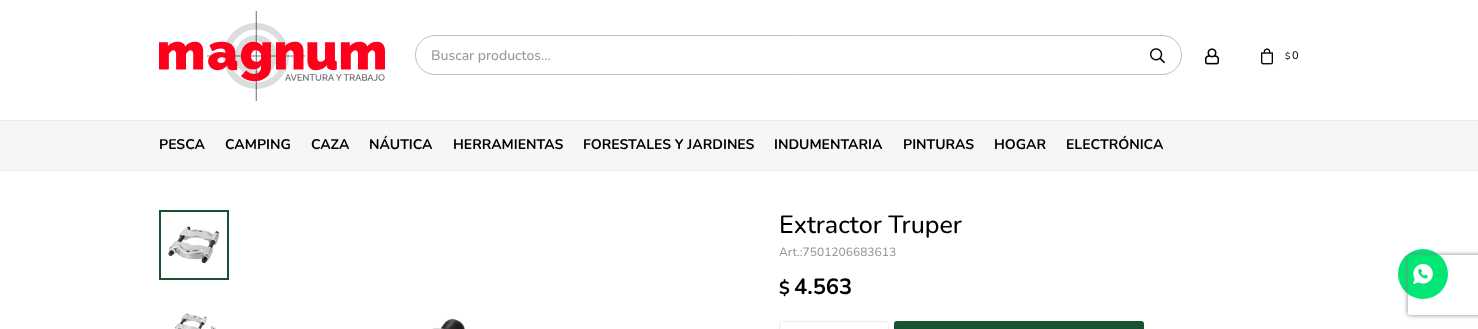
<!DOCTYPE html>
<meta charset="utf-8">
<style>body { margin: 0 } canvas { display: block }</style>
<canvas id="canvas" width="1478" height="329"></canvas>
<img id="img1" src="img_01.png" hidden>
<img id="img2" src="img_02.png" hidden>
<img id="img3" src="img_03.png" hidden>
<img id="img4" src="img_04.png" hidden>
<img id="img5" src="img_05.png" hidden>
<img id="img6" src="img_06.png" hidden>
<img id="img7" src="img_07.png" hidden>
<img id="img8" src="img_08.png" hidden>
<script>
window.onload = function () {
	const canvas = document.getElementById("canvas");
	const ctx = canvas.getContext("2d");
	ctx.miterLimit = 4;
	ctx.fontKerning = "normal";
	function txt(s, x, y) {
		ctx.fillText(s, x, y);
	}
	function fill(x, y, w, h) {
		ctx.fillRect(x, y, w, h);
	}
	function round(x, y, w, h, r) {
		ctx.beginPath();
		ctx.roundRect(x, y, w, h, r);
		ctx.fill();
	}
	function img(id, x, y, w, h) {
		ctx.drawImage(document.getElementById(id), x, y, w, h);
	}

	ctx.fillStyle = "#FFFFFF";
	fill(0, 0, 1478, 329);
	img("img1", 159, 11, 226, 90);
	ctx.beginPath();
	ctx.roundRect(415.5, 35.5, 766, 39, 19.5);
	ctx.strokeStyle = "#C0C0C0";
	ctx.stroke();
	img("img2", 1150, 48, 15, 16);
	img("img3", 1205, 48, 14, 17);
	img("img4", 1261, 48, 12, 17);
	ctx.fillStyle = "#EDEDED";
	fill(0, 120, 1478, 1);
	fill(0, 170, 1478, 1);
	ctx.fillStyle = "#F6F6F6";
	fill(0, 121, 1478, 49);
	img("img5", 168, 226, 52, 38);
	ctx.strokeStyle = "#175330";
	ctx.lineWidth = 2;
	ctx.strokeRect(160, 211, 68, 68);
	img("img6", 175, 313, 41, 16);
	img("img7", 432, 318, 35, 11);
	ctx.beginPath();
	ctx.roundRect(779.5, 321.5, 109, 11, 2.5);
	ctx.strokeStyle = "#EDEDED";
	ctx.lineWidth = 1;
	ctx.stroke();
	ctx.fillStyle = "#175330";
	round(894, 321, 250, 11, 3);
	ctx.fillStyle = "#01E675";
	ctx.beginPath();
	ctx.arc(1423, 274, 25, 0, Math.PI * 2);
	ctx.fill();
	img("img8", 1413, 264, 20, 20);
	ctx.save();
	ctx.beginPath();
	ctx.moveTo(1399, 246);
	ctx.lineTo(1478, 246);
	ctx.lineTo(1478, 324);
	ctx.lineTo(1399, 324);
	ctx.closePath();
	ctx.moveTo(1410, 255);
	ctx.lineTo(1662, 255);
	ctx.bezierCurveTo(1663, 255, 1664, 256, 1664, 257);
	ctx.lineTo(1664, 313);
	ctx.bezierCurveTo(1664, 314, 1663, 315, 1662, 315);
	ctx.lineTo(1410, 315);
	ctx.bezierCurveTo(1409, 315, 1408, 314, 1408, 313);
	ctx.lineTo(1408, 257);
	ctx.bezierCurveTo(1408, 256, 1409, 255, 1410, 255);
	ctx.closePath();
	ctx.clip("evenodd");
	ctx.fillStyle = "#808080";
	ctx.filter = "blur(2.5px)";
	ctx.beginPath();
	ctx.roundRect(1408, 255, 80, 60, 2);
	ctx.fill();
	ctx.filter = "none";
	ctx.restore();
	ctx.font = "500 14px Nunito";
	ctx.fillStyle = "#999999";
	txt("Buscar productos...", 431, 60);
	ctx.font = "500 9px Nunito";
	ctx.fillStyle = "#000000";
	txt("$", 1285, 59);
	ctx.font = "500 11px Nunito";
	txt("0", 1292, 59);
	ctx.font = "bold 14px Nunito";
	txt("PESCA", 159, 149);
	txt("CAMPING", 225, 149);
	txt("CAZA", 311, 149);
	txt("NÁUTICA", 369, 149);
	txt("HERRAMIENTAS", 453, 149);
	txt("FORESTALES Y JARDINES", 583, 149);
	txt("INDUMENTARIA", 774, 149);
	txt("PINTURAS", 903, 149);
	txt("HOGAR", 994, 149);
	txt("ELECTRÓNICA", 1066, 149);
	ctx.font = "500 25px Nunito";
	txt("Extractor Truper", 779, 233);
	ctx.font = "500 12px Nunito";
	ctx.fillStyle = "#999999";
	txt("Art.:7501206683613", 779, 256);
	ctx.font = "bold 18px Nunito";
	ctx.fillStyle = "#000000";
	txt("$", 779, 294);
	ctx.font = "bold 22px Nunito";
	txt("4.563", 794, 294);
};
</script>
